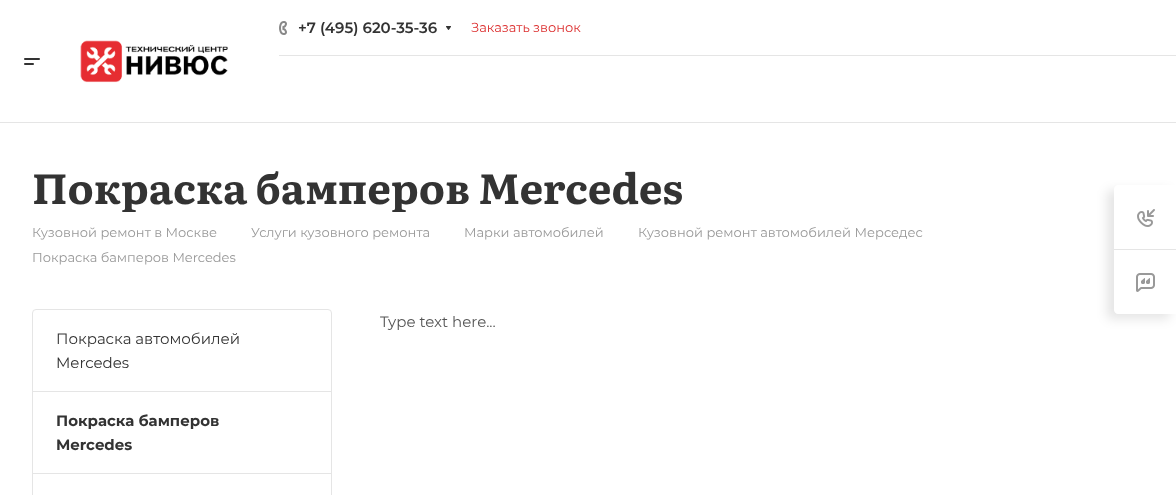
<!DOCTYPE html>
<meta charset="utf-8">
<style>body { margin: 0 } canvas { display: block }</style>
<canvas id="canvas" width="1176" height="495"></canvas>
<img id="img1" src="img_01.png" hidden>
<img id="img2" src="img_02.png" hidden>
<img id="img3" src="img_03.png" hidden>
<img id="img4" src="img_04.png" hidden>
<img id="img5" src="img_05.png" hidden>
<img id="img6" src="img_06.png" hidden>
<script>
window.onload = function () {
	const canvas = document.getElementById("canvas");
	const ctx = canvas.getContext("2d");
	ctx.miterLimit = 4;
	ctx.fontKerning = "normal";
	function txt(s, x, y) {
		ctx.fillText(s, x, y);
	}
	function fill(x, y, w, h) {
		ctx.fillRect(x, y, w, h);
	}
	function img(id, x, y, w, h) {
		ctx.drawImage(document.getElementById(id), x, y, w, h);
	}

	ctx.fillStyle = "#FFFFFF";
	fill(0, 0, 1176, 495);
	ctx.fillStyle = "#E5E5E5";
	fill(0, 122, 1176, 1);
	fill(279, 55, 897, 1);
	img("img1", 279, 21, 8, 14);
	img("img2", 446, 26, 5, 4);
	img("img3", 24, 58, 16, 7);
	img("img4", 80, 40, 148, 43);
	ctx.beginPath();
	ctx.roundRect(32.5, 309.5, 299, 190, 3.5);
	ctx.strokeStyle = "#E5E5E5";
	ctx.stroke();
	fill(33, 391, 298, 1);
	fill(33, 473, 298, 1);
	ctx.fillStyle = "rgba(0, 0, 0, 0.1)";
	ctx.filter = "blur(5.5px)";
	ctx.beginPath();
	ctx.roundRect(1107, 190, 63, 129, 4);
	ctx.fill();
	ctx.filter = "none";
	ctx.fillStyle = "#FFFFFF";
	ctx.beginPath();
	ctx.moveTo(1118, 185);
	ctx.lineTo(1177, 185);
	ctx.lineTo(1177, 314);
	ctx.lineTo(1118, 314);
	ctx.bezierCurveTo(1116, 314, 1114, 312, 1114, 310);
	ctx.lineTo(1114, 189);
	ctx.bezierCurveTo(1114, 187, 1116, 185, 1118, 185);
	ctx.closePath();
	ctx.fill();
	img("img5", 1137, 209, 18, 18);
	ctx.fillStyle = "#E5E5E5";
	fill(1114, 249, 62, 1);
	img("img6", 1136, 273, 19, 19);
	ctx.font = "600 15px Montserrat";
	ctx.fillStyle = "#333333";
	txt("+7 (495) 620-35-36", 298, 33);
	ctx.font = "13px Montserrat";
	ctx.fillStyle = "#DC2F2F";
	txt("Заказать звонок", 471, 32);
	ctx.save();
	ctx.beginPath();
	ctx.rect(32, 160, 1112, 52);
	ctx.clip();
	ctx.font = "bold 42px Literata";
	ctx.fillStyle = "#333333";
	txt("Покраска бамперов Mercedes", 32, 204);
	ctx.restore();
	ctx.fillStyle = "#999999";
	txt("Кузовной ремонт в Москве", 32, 237);
	txt("Услуги кузовного ремонта", 251, 237);
	txt("Марки автомобилей", 464, 237);
	txt("Кузовной ремонт автомобилей Мерседес", 638, 237);
	txt("Покраска бамперов Mercedes", 32, 262);
	ctx.font = "15px Montserrat";
	ctx.fillStyle = "#555555";
	txt("Type text here...", 380, 327);
	ctx.fillStyle = "#333333";
	txt("Покраска автомобилей", 56, 344);
	txt("Mercedes", 56, 368);
	ctx.font = "bold 15px Montserrat";
	txt("Покраска бамперов", 56, 426);
	txt("Mercedes", 56, 450);
};
</script>
